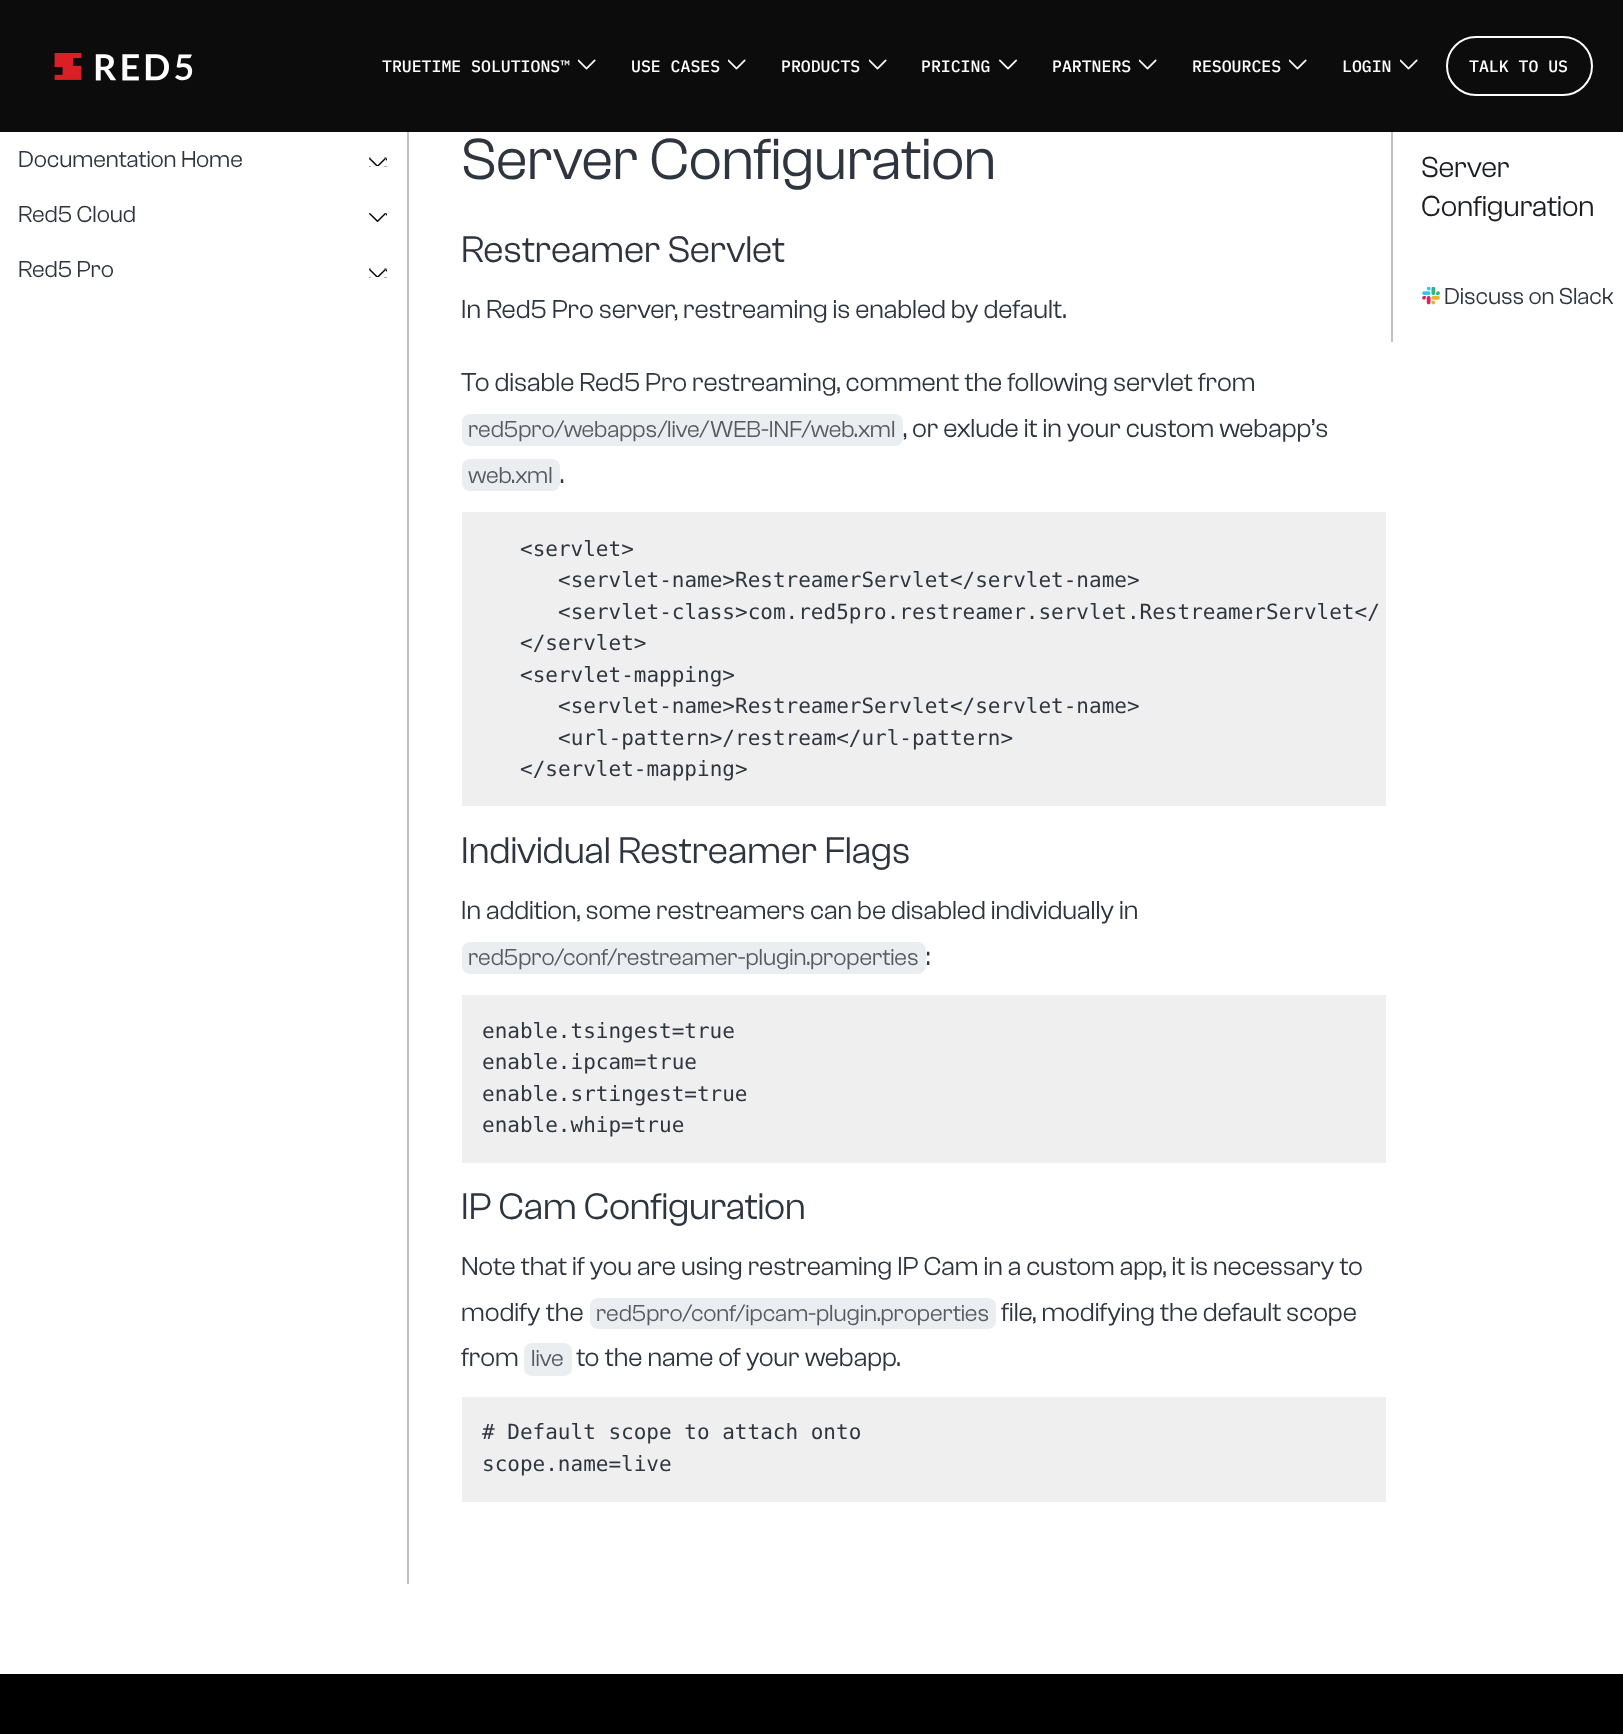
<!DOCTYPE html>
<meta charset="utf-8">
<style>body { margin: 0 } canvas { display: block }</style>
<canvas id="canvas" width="1623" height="1734"></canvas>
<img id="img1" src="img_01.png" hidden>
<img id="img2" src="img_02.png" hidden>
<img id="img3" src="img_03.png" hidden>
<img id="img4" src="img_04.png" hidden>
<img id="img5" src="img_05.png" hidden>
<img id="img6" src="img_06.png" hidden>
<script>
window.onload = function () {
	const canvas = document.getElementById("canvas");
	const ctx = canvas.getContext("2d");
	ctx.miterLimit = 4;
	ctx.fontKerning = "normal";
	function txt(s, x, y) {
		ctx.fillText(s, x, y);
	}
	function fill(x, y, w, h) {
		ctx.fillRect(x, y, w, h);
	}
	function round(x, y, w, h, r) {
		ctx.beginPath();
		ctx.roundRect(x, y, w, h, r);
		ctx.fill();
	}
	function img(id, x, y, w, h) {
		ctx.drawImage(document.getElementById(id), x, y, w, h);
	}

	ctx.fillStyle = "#000000";
	fill(0, 0, 1623, 1734);
	ctx.fillStyle = "#FFFFFF";
	fill(0, 132, 1623, 1542);
	ctx.fillStyle = "#C1C1C1";
	fill(1391, 126, 2, 216);
	ctx.fillStyle = "#0C0C0C";
	fill(0, 0, 1623, 132);
	img("img1", 54, 53, 139, 28);
	img("img2", 578, 59, 18, 11);
	img("img2", 728, 59, 18, 11);
	img("img2", 869, 59, 18, 11);
	img("img3", 999, 59, 18, 11);
	img("img2", 1139, 59, 18, 11);
	img("img2", 1289, 59, 18, 11);
	img("img2", 1400, 59, 18, 11);
	ctx.beginPath();
	ctx.roundRect(1447, 37, 145, 58, 29);
	ctx.strokeStyle = "#FFFFFF";
	ctx.lineWidth = 2;
	ctx.stroke();
	img("img4", 369, 157, 18, 10);
	img("img5", 369, 213, 18, 9);
	img("img4", 369, 268, 18, 10);
	ctx.fillStyle = "#C1C1C1";
	fill(407, 132, 2, 1452);
	ctx.fillStyle = "#EBEEF0";
	round(462, 414, 441, 32, 8);
	round(462, 459, 98, 32, 8);
	ctx.fillStyle = "#EFEFEF";
	fill(462, 512, 924, 294);
	ctx.fillStyle = "#EBEEF0";
	round(462, 942, 464, 32, 8);
	ctx.fillStyle = "#EFEFEF";
	fill(462, 995, 924, 168);
	ctx.fillStyle = "#EBEEF0";
	round(590, 1298, 406, 31, 8);
	round(524, 1343, 48, 33, 8);
	ctx.fillStyle = "#EFEFEF";
	fill(462, 1397, 924, 105);
	img("img6", 1422, 287, 18, 18);
	ctx.font = "500 16.5px IBM Plex Mono";
	ctx.fillStyle = "#FFFFFF";
	txt("TRUETIME SOLUTIONS™", 382, 72);
	txt("USE CASES", 631, 72);
	txt("PRODUCTS", 781, 72);
	txt("PRICING", 921, 72);
	txt("PARTNERS", 1052, 72);
	txt("RESOURCES", 1192, 72);
	txt("LOGIN", 1342, 72);
	txt("TALK TO US", 1469, 72);
	ctx.font = "24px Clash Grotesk";
	ctx.fillStyle = "#2F353F";
	txt("Documentation Home", 18, 167);
	txt("Red5 Cloud", 18, 222);
	txt("Red5 Pro", 18, 277);
	ctx.font = "60px Clash Grotesk";
	txt("Server Configuration", 461, 179);
	ctx.font = "38.4px Clash Grotesk";
	txt("Restreamer Servlet", 461, 262);
	ctx.font = "27px Clash Grotesk";
	txt("In Red5 Pro server, restreaming is enabled by default.", 461, 318);
	txt("To disable Red5 Pro restreaming, comment the following servlet from", 461, 391);
	ctx.font = "24px Clash Grotesk";
	ctx.fillStyle = "#575A60";
	txt("red5pro/webapps/live/WEB-INF/web.xml", 468, 437);
	ctx.font = "27px Clash Grotesk";
	ctx.fillStyle = "#2F353F";
	txt(", or exlude it in your custom webapp’s", 903, 437);
	ctx.font = "24px Clash Grotesk";
	ctx.fillStyle = "#575A60";
	txt("web.xml", 468, 483);
	ctx.font = "27px Clash Grotesk";
	ctx.fillStyle = "#2F353F";
	txt(".", 560, 483);
	ctx.font = "21px DejaVu Sans Mono";
	txt("<servlet>", 520, 556);
	txt("<servlet-name>RestreamerServlet<\/servlet-name>", 558, 587);
	txt("<servlet-class>com.red5pro.restreamer.servlet.RestreamerServlet<\/", 558, 619);
	txt("<\/servlet>", 520, 650);
	txt("<servlet-mapping>", 520, 682);
	txt("<servlet-name>RestreamerServlet<\/servlet-name>", 558, 713);
	txt("<url-pattern>/restream<\/url-pattern>", 558, 745);
	txt("<\/servlet-mapping>", 520, 776);
	ctx.font = "38.4px Clash Grotesk";
	txt("Individual Restreamer Flags", 461, 863);
	ctx.font = "27px Clash Grotesk";
	txt("In addition, some restreamers can be disabled individually in", 461, 919);
	ctx.font = "24px Clash Grotesk";
	ctx.fillStyle = "#575A60";
	txt("red5pro/conf/restreamer-plugin.properties", 468, 965);
	ctx.font = "27px Clash Grotesk";
	ctx.fillStyle = "#2F353F";
	txt(":", 926, 965);
	ctx.font = "21px DejaVu Sans Mono";
	txt("enable.tsingest=true", 482, 1038);
	txt("enable.ipcam=true", 482, 1069);
	txt("enable.srtingest=true", 482, 1101);
	txt("enable.whip=true", 482, 1132);
	ctx.font = "38.4px Clash Grotesk";
	txt("IP Cam Configuration", 461, 1219);
	ctx.font = "27px Clash Grotesk";
	txt("Note that if you are using restreaming IP Cam in a custom app, it is necessary to", 461, 1275);
	txt("modify the", 461, 1321);
	ctx.font = "24px Clash Grotesk";
	ctx.fillStyle = "#575A60";
	txt("red5pro/conf/ipcam-plugin.properties", 596, 1321);
	ctx.font = "27px Clash Grotesk";
	ctx.fillStyle = "#2F353F";
	txt("file, modifying the default scope", 1001, 1321);
	txt("from", 461, 1366);
	ctx.font = "24px Clash Grotesk";
	ctx.fillStyle = "#575A60";
	txt("live", 531, 1366);
	ctx.font = "27px Clash Grotesk";
	ctx.fillStyle = "#2F353F";
	txt("to the name of your webapp.", 576, 1366);
	ctx.font = "21px DejaVu Sans Mono";
	txt("# Default scope to attach onto", 482, 1439);
	txt("scope.name=live", 482, 1471);
	ctx.font = "30px Clash Grotesk";
	ctx.fillStyle = "#1B1D20";
	txt("Server", 1421, 177);
	txt("Configuration", 1421, 216);
	ctx.font = "24px Clash Grotesk";
	ctx.fillStyle = "#2F353F";
	txt("Discuss on Slack", 1444, 304);
};
</script>
